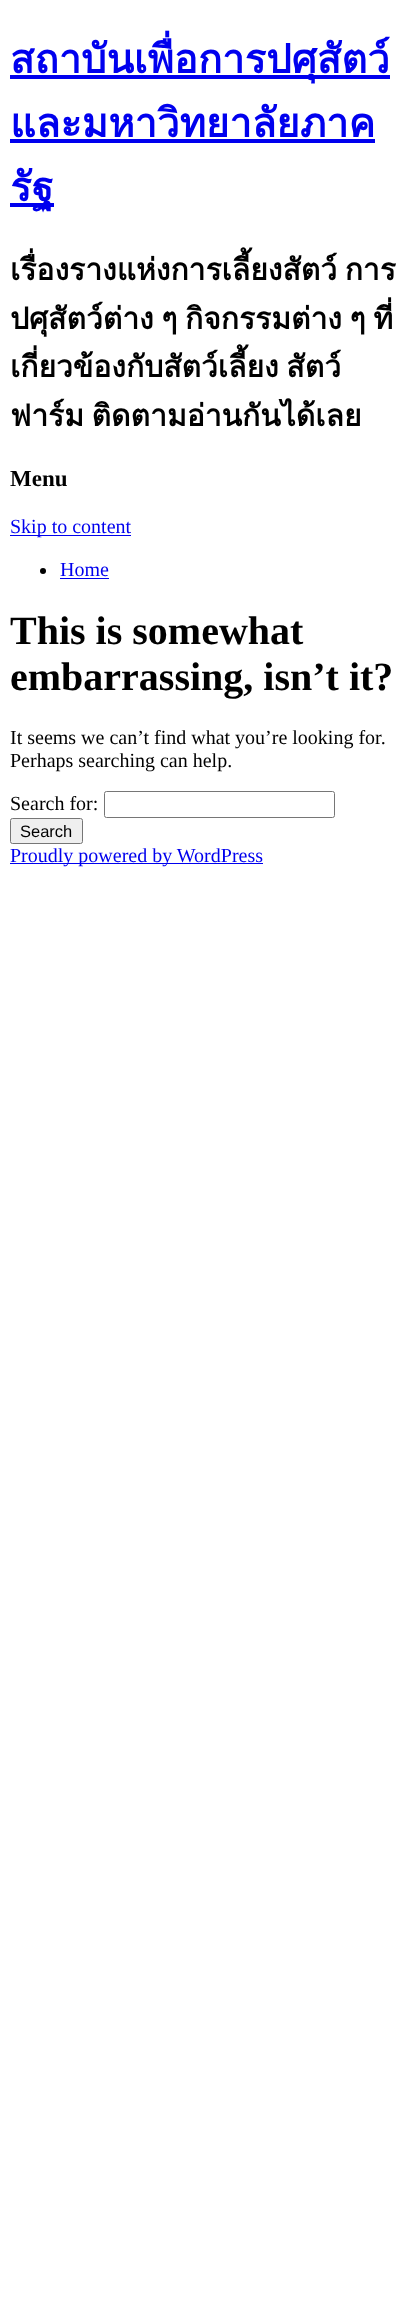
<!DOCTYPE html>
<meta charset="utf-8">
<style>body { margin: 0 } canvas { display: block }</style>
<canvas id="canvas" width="411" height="2298"></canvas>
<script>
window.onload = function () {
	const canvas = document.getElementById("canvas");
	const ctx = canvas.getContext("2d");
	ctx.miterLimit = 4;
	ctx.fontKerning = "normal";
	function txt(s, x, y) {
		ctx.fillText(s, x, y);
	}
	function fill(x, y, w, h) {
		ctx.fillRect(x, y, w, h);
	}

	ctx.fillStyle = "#FFFFFF";
	fill(0, 0, 411, 2298);
	ctx.fillStyle = "#0000EE";
	fill(10, 75, 380, 4);
	fill(10, 139, 365, 4);
	fill(10, 203, 44, 4);
	fill(10, 535, 121, 1);
	ctx.fillStyle = "#000000";
	ctx.beginPath();
	ctx.arc(43, 571, 3, 0, Math.PI * 2);
	ctx.fill();
	ctx.fillStyle = "#0000EE";
	fill(60, 578, 49, 1);
	ctx.beginPath();
	ctx.roundRect(104.5, 791.5, 230, 26, 2);
	ctx.strokeStyle = "#767676";
	ctx.stroke();
	ctx.fillStyle = "#EFEFEF";
	ctx.beginPath();
	ctx.roundRect(10.5, 818.5, 72, 25, 2);
	ctx.fill();
	ctx.stroke();
	ctx.fillStyle = "#0000EE";
	fill(10, 863, 253, 1);
	ctx.font = "bold 40px Loma";
	txt("สถาบันเพื่อการปศุสัตว์", 10, 73);
	txt("และมหาวิทยาลัยภาค", 10, 137);
	txt("รัฐ", 10, 201);
	ctx.wordSpacing = "-2.5px";
	ctx.font = "bold 30px Loma";
	ctx.fillStyle = "#000000";
	txt("เรื่องรางแห่งการเลี้ยงสัตว์ การ", 10, 280);
	txt("ปศุสัตว์ต่าง ๆ กิจกรรมต่าง ๆ ที่", 10, 329);
	txt("เกี่ยวข้องกับสัตว์เลี้ยง สัตว์", 10, 377);
	txt("ฟาร์ม ติดตามอ่านกันได้เลย", 10, 426);
	ctx.wordSpacing = "0px";
	ctx.font = "bold 23px Liberation Serif";
	txt("Menu", 10, 486);
	ctx.font = "20px Liberation Serif";
	ctx.fillStyle = "#0000EE";
	txt("Skip to content", 10, 533);
	txt("Home", 60, 576);
	ctx.font = "bold 40px Liberation Serif";
	ctx.fillStyle = "#000000";
	txt("This is somewhat", 10, 644);
	txt("embarrassing, isn’t it?", 10, 690);
	ctx.font = "20px Liberation Serif";
	txt("It seems we can’t find what you’re looking for.", 10, 744);
	txt("Perhaps searching can help.", 10, 767);
	txt("Search for:", 10, 810);
	ctx.font = "16.5px Liberation Sans";
	txt("Search", 20, 837);
	ctx.font = "20px Liberation Serif";
	ctx.fillStyle = "#0000EE";
	txt("Proudly powered by WordPress", 10, 862);
};
</script>
